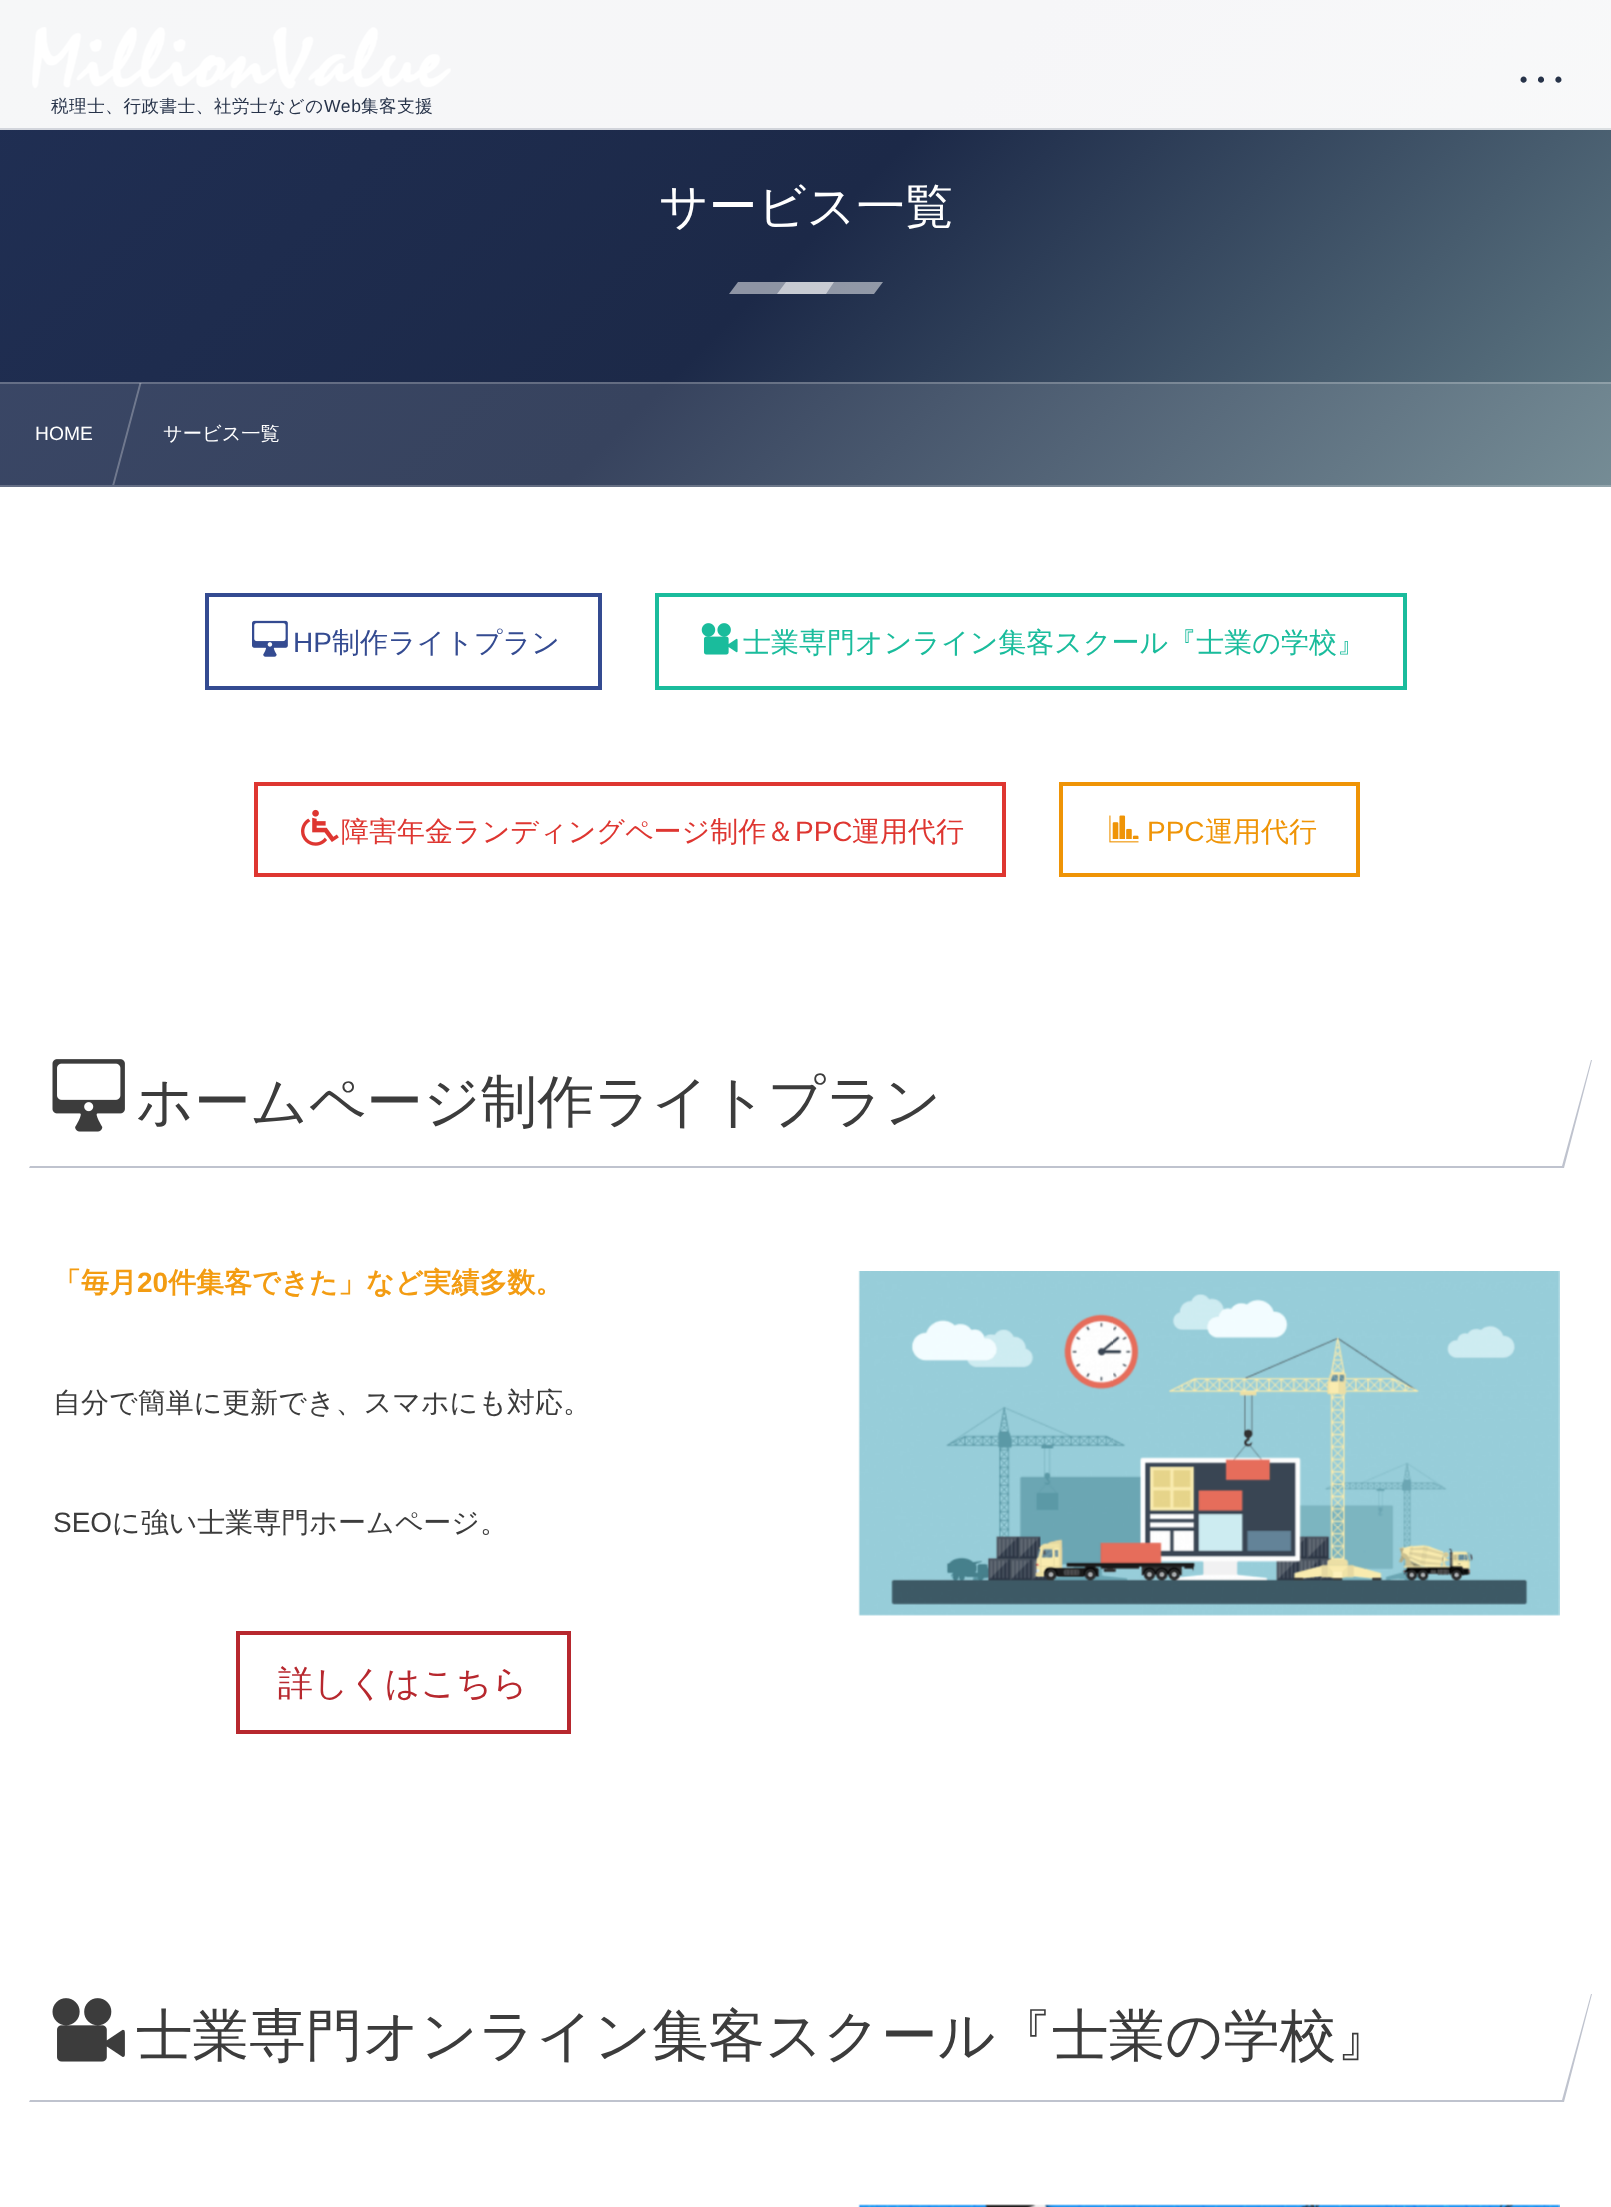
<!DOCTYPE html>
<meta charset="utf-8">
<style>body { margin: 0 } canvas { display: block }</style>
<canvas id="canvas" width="1611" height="2207"></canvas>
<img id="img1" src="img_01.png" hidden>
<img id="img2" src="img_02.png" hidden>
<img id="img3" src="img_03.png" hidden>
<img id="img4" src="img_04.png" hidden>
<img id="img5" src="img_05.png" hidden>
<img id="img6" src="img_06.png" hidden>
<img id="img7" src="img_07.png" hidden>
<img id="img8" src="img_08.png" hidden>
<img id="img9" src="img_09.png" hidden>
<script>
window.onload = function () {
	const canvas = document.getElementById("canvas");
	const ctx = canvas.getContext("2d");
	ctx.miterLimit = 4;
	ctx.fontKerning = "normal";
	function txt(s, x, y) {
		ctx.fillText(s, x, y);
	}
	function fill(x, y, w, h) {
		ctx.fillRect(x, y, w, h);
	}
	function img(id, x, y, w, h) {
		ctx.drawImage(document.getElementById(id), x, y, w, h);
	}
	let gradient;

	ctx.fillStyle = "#FFFFFF";
	fill(0, 0, 1611, 2207);
	gradient = ctx.createLinearGradient(281, -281, 1330, 768);
	gradient.addColorStop(0, "#202F54");
	gradient.addColorStop(0.5, "#1C2948");
	gradient.addColorStop(1, "#627C86");
	ctx.fillStyle = gradient;
	fill(0, 128, 1611, 254);
	ctx.fillStyle = "rgba(255, 255, 255, 0.8)";
	fill(0, 128, 1611, 2);
	gradient = ctx.createLinearGradient(281, -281, 1330, 768);
	gradient.addColorStop(0, "#F6F7F8");
	gradient.addColorStop(0.5, "#F6F6F8");
	gradient.addColorStop(1, "#F9FAFA");
	ctx.fillStyle = gradient;
	fill(0, 0, 1611, 128);
	img("img1", 32, 27, 419, 62);
	gradient = ctx.createLinearGradient(281, -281, 1330, 768);
	gradient.addColorStop(0, "#3B4869");
	gradient.addColorStop(0.5, "#37435E");
	gradient.addColorStop(1, "#758C95");
	ctx.fillStyle = gradient;
	fill(0, 384, 1611, 101);
	gradient = ctx.createLinearGradient(281, -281, 1330, 768);
	gradient.addColorStop(0, "#66708A");
	gradient.addColorStop(0.5, "#636C81");
	gradient.addColorStop(1, "#93A5AC");
	ctx.fillStyle = gradient;
	fill(0, 485, 1611, 2);
	fill(0, 382, 1611, 2);
	ctx.fillStyle = "rgba(255, 255, 255, 0.5)";
	ctx.beginPath();
	ctx.moveTo(738, 282);
	ctx.lineTo(834, 282);
	ctx.lineTo(826, 294);
	ctx.lineTo(729, 294);
	ctx.closePath();
	ctx.fill();
	ctx.beginPath();
	ctx.moveTo(786, 282);
	ctx.lineTo(883, 282);
	ctx.lineTo(874, 294);
	ctx.lineTo(777, 294);
	ctx.closePath();
	ctx.fill();
	ctx.save();
	ctx.beginPath();
	ctx.rect(0, 383, 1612, 102);
	ctx.clip();
	ctx.fillStyle = "rgba(255, 255, 255, 0.28)";
	ctx.beginPath();
	ctx.moveTo(140, 381);
	ctx.lineTo(142, 381);
	ctx.lineTo(114, 486);
	ctx.lineTo(112, 486);
	ctx.closePath();
	ctx.fill();
	ctx.restore();
	ctx.strokeStyle = "#344B91";
	ctx.lineWidth = 4;
	ctx.strokeRect(207, 595, 393, 93);
	img("img2", 252, 620, 36, 37);
	ctx.strokeStyle = "#1ABC9C";
	ctx.strokeRect(657, 595, 748, 93);
	img("img3", 701, 623, 37, 32);
	ctx.strokeStyle = "#DE3631";
	ctx.strokeRect(256, 784, 748, 91);
	img("img4", 301, 809, 38, 37);
	ctx.strokeStyle = "#EF9406";
	ctx.strokeRect(1061, 784, 297, 91);
	img("img5", 1109, 815, 30, 28);
	img("img6", 52, 1059, 73, 73);
	ctx.strokeStyle = "#B7282E";
	ctx.strokeRect(238, 1633, 331, 99);
	img("img7", 858, 1271, 702, 345);
	img("img8", 52, 1998, 73, 64);
	img("img9", 858, 2204, 702, 3);
	ctx.font = "52px Liberation Serif";
	ctx.fillStyle = "#273349";
	txt("…", 1515, 82);
	ctx.letterSpacing = "0.6px";
	ctx.font = "500 17.5px WenQuanYi Zen Hei";
	txt("税理士、行政書士、社労士などの", 51, 112);
	ctx.font = "17.5px Liberation Sans";
	txt("Web", 324, 112);
	ctx.font = "500 17.5px WenQuanYi Zen Hei";
	txt("集客支援", 361, 112);
	ctx.letterSpacing = "0px";
	ctx.font = "500 48.5px WenQuanYi Zen Hei";
	ctx.fillStyle = "#FFFFFF";
	txt("サービス一覧", 659, 223);
	ctx.font = "19.25px Liberation Sans";
	txt("HOME", 35, 440);
	ctx.font = "500 19.25px WenQuanYi Zen Hei";
	txt("サービス一覧", 163, 440);
	ctx.font = "28px Liberation Sans";
	ctx.fillStyle = "#344B91";
	txt("HP", 293, 652);
	ctx.font = "500 28px WenQuanYi Zen Hei";
	txt("制作ライトプラン", 332, 652);
	ctx.fillStyle = "#1ABC9C";
	txt("士業専門オンライン集客スクール『士業の学校』", 743, 652);
	ctx.fillStyle = "#DE3631";
	txt("障害年金ランディングページ制作＆", 341, 841);
	ctx.font = "28px Liberation Sans";
	txt("PPC", 795, 841);
	ctx.font = "500 28px WenQuanYi Zen Hei";
	txt("運用代行", 852, 841);
	ctx.font = "28px Liberation Sans";
	ctx.fillStyle = "#EF9406";
	txt("PPC", 1147, 841);
	ctx.font = "500 28px WenQuanYi Zen Hei";
	txt("運用代行", 1205, 841);
	ctx.font = "500 56.6px WenQuanYi Zen Hei";
	ctx.fillStyle = "#3C3C3C";
	txt("ホームページ制作ライトプラン", 136, 1121);
	ctx.fillStyle = "rgba(121, 130, 152, 0.48)";
	ctx.beginPath();
	ctx.moveTo(30, 1166);
	ctx.lineTo(29, 1168);
	ctx.lineTo(1564, 1168);
	ctx.lineTo(1592, 1060);
	ctx.lineTo(1591, 1060);
	ctx.lineTo(1562, 1166);
	ctx.closePath();
	ctx.fill();
	ctx.font = "bold 28px WenQuanYi Zen Hei";
	ctx.fillStyle = "#F39C12";
	txt("「毎月", 53, 1292);
	ctx.font = "bold 28px Liberation Sans";
	txt("20", 137, 1292);
	ctx.font = "bold 28px WenQuanYi Zen Hei";
	txt("件集客できた」など実績多数。", 168, 1292);
	ctx.font = "500 28px WenQuanYi Zen Hei";
	ctx.fillStyle = "#3C3C3C";
	txt("自分で簡単に更新でき、スマホにも対応。", 53, 1412);
	ctx.font = "28px Liberation Sans";
	txt("SEO", 53, 1532);
	ctx.font = "500 28px WenQuanYi Zen Hei";
	txt("に強い士業専門ホームページ。", 112, 1532);
	ctx.font = "500 35px WenQuanYi Zen Hei";
	ctx.fillStyle = "#B7282E";
	txt("詳しくはこちら", 278, 1695);
	ctx.font = "500 56.6px WenQuanYi Zen Hei";
	ctx.fillStyle = "#3C3C3C";
	txt("士業専門オンライン集客スクール『士業の学校』", 136, 2055);
	ctx.fillStyle = "rgba(121, 130, 152, 0.48)";
	ctx.beginPath();
	ctx.moveTo(30, 2100);
	ctx.lineTo(29, 2102);
	ctx.lineTo(1564, 2102);
	ctx.lineTo(1592, 1994);
	ctx.lineTo(1591, 1994);
	ctx.lineTo(1562, 2100);
	ctx.closePath();
	ctx.fill();
};
</script>
